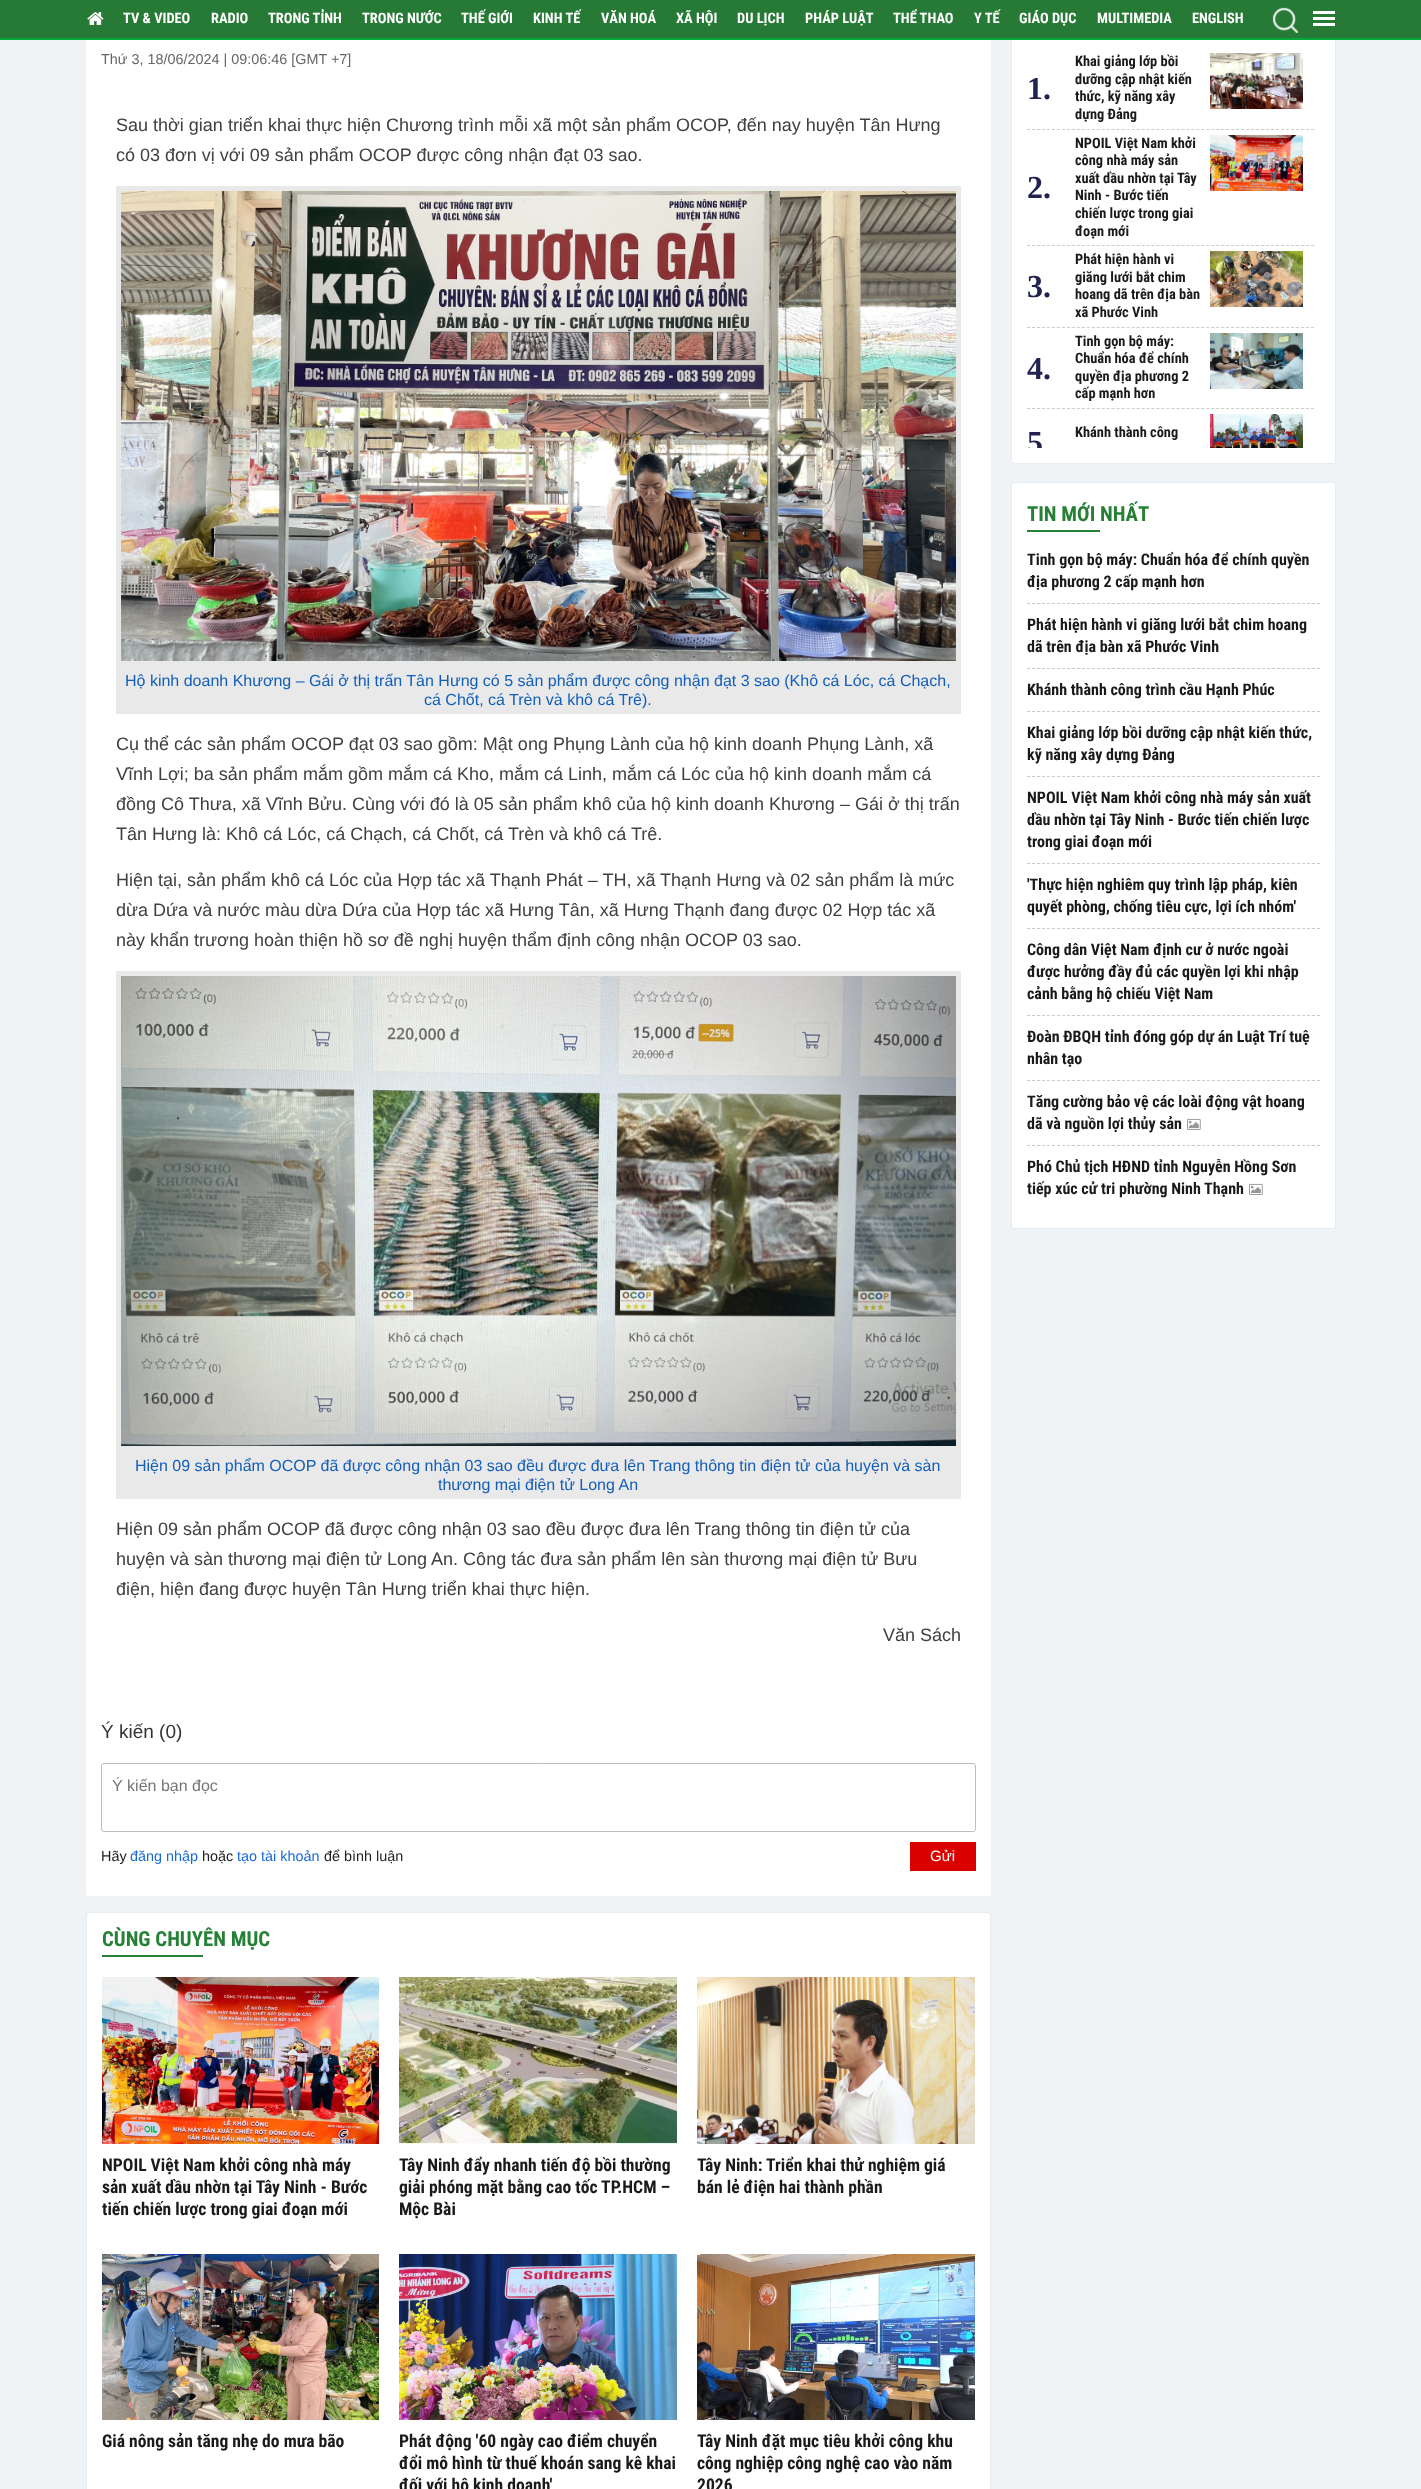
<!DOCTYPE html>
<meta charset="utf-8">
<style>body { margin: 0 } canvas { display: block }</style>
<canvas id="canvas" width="1421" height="2489"></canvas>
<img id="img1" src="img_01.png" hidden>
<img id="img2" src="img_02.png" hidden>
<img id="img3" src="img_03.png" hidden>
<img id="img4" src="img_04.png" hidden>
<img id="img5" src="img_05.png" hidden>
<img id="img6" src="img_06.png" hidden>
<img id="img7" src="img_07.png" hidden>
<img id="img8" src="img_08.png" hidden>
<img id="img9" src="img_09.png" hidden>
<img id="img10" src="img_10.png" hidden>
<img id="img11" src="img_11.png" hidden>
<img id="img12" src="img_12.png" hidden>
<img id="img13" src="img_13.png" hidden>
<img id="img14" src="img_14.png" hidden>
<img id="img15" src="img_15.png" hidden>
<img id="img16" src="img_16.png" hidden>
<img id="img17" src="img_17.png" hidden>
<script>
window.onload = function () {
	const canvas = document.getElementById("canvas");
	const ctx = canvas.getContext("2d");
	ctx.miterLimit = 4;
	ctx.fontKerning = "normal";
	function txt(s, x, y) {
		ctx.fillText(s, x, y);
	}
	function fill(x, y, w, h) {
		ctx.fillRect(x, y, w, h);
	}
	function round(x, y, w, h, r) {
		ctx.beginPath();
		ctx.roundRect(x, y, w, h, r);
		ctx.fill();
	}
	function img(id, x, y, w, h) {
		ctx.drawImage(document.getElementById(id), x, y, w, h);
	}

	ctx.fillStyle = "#EFF3F6";
	fill(0, 0, 1421, 2489);
	ctx.fillStyle = "#FFFFFF";
	round(86, -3, 905, 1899, 3);
	ctx.beginPath();
	ctx.roundRect(1011.5, -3.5, 324, 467, 2.5);
	ctx.fill();
	ctx.strokeStyle = "#E5EBF0";
	ctx.stroke();
	img("img1", 0, 0, 1421, 40);
	img("img2", 87, 12, 17, 13);
	img("img3", 1272, 7, 26, 26);
	fill(1313, 11, 22, 3);
	fill(1313, 17, 22, 3);
	fill(1313, 23, 22, 3);
	ctx.fillStyle = "#E9E9E9";
	fill(116, 186, 845, 528);
	img("img4", 121, 191, 835, 470);
	fill(116, 971, 845, 528);
	img("img5", 121, 976, 835, 470);
	ctx.beginPath();
	ctx.roundRect(101.5, 1763.5, 874, 68, 2.5);
	ctx.strokeStyle = "#BDBDBD";
	ctx.stroke();
	ctx.fillStyle = "#DA0000";
	fill(910, 1842, 66, 29);
	ctx.fillStyle = "#FFFFFF";
	ctx.beginPath();
	ctx.roundRect(86.5, 1912.5, 904, 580, 2.5);
	ctx.fill();
	ctx.strokeStyle = "#E5EBF0";
	ctx.stroke();
	ctx.fillStyle = "#268036";
	fill(102, 1955, 101, 2);
	img("img6", 102, 1977, 277, 167);
	img("img7", 399, 1977, 278, 167);
	img("img8", 697, 1977, 278, 167);
	img("img9", 102, 2254, 277, 166);
	img("img10", 399, 2254, 278, 166);
	img("img11", 697, 2254, 278, 166);
	ctx.beginPath();
	ctx.moveTo(1027, 129.5);
	ctx.lineTo(1314, 129.5);
	ctx.strokeStyle = "#CCCCCC";
	ctx.setLineDash([3, 1.98]);
	ctx.stroke();
	img("img12", 1210, 53, 93, 56);
	ctx.beginPath();
	ctx.moveTo(1027, 245.5);
	ctx.lineTo(1314, 245.5);
	ctx.stroke();
	img("img13", 1210, 135, 93, 56);
	ctx.beginPath();
	ctx.moveTo(1027, 327.5);
	ctx.lineTo(1314, 327.5);
	ctx.stroke();
	img("img14", 1210, 251, 93, 56);
	ctx.beginPath();
	ctx.moveTo(1027, 408.5);
	ctx.lineTo(1314, 408.5);
	ctx.stroke();
	img("img15", 1210, 333, 93, 56);
	img("img16", 1210, 414, 93, 34);
	ctx.fillStyle = "#FFFFFF";
	ctx.beginPath();
	ctx.roundRect(1011.5, 482.5, 324, 746, 2.5);
	ctx.fill();
	ctx.strokeStyle = "#E5EBF0";
	ctx.setLineDash([]);
	ctx.stroke();
	ctx.fillStyle = "#268036";
	fill(1027, 530, 73, 2);
	ctx.beginPath();
	ctx.moveTo(1027, 603.5);
	ctx.lineTo(1320, 603.5);
	ctx.strokeStyle = "#CCCCCC";
	ctx.setLineDash([3, 2]);
	ctx.stroke();
	ctx.beginPath();
	ctx.moveTo(1027, 668.5);
	ctx.lineTo(1320, 668.5);
	ctx.stroke();
	ctx.beginPath();
	ctx.moveTo(1027, 711.5);
	ctx.lineTo(1320, 711.5);
	ctx.stroke();
	ctx.beginPath();
	ctx.moveTo(1027, 776.5);
	ctx.lineTo(1320, 776.5);
	ctx.stroke();
	ctx.beginPath();
	ctx.moveTo(1027, 863.5);
	ctx.lineTo(1320, 863.5);
	ctx.stroke();
	ctx.beginPath();
	ctx.moveTo(1027, 928.5);
	ctx.lineTo(1320, 928.5);
	ctx.stroke();
	ctx.beginPath();
	ctx.moveTo(1027, 1015.5);
	ctx.lineTo(1320, 1015.5);
	ctx.stroke();
	ctx.beginPath();
	ctx.moveTo(1027, 1080.5);
	ctx.lineTo(1320, 1080.5);
	ctx.stroke();
	ctx.beginPath();
	ctx.moveTo(1027, 1145.5);
	ctx.lineTo(1320, 1145.5);
	ctx.stroke();
	img("img17", 1187, 1118, 14, 12);
	img("img17", 1249, 1183, 14, 12);
	ctx.font = "bold 14.4px Roboto Condensed";
	ctx.fillStyle = "#FFFFFF";
	txt("TV & VIDEO", 123, 23);
	txt("RADIO", 211, 23);
	txt("TRONG TỈNH", 268, 23);
	txt("TRONG NƯỚC", 362, 23);
	txt("THẾ GIỚI", 461, 23);
	txt("KINH TẾ", 533, 23);
	txt("VĂN HOÁ", 601, 23);
	txt("XÃ HỘI", 676, 23);
	txt("DU LỊCH", 737, 23);
	txt("PHÁP LUẬT", 805, 23);
	txt("THỂ THAO", 893, 23);
	txt("Y TẾ", 974, 23);
	txt("GIÁO DỤC", 1019, 23);
	txt("MULTIMEDIA", 1097, 23);
	txt("ENGLISH", 1192, 23);
	ctx.font = "14.4px Liberation Sans";
	ctx.fillStyle = "#666666";
	txt("Thứ 3, 18/06/2024 | 09:06:46 [GMT +7]", 101, 64);
	ctx.font = "18px Liberation Sans";
	ctx.fillStyle = "#404040";
	txt("Sau thời gian triển khai thực hiện Chương trình mỗi xã một sản phẩm OCOP, đến nay huyện Tân Hưng", 116, 131);
	txt("có 03 đơn vị với 09 sản phẩm OCOP được công nhận đạt 03 sao.", 116, 161);
	ctx.font = "16px Liberation Sans";
	ctx.fillStyle = "#135EB9";
	txt("Hộ kinh doanh Khương – Gái ở thị trấn Tân Hưng có 5 sản phẩm được công nhận đạt 3 sao (Khô cá Lóc, cá Chạch,", 125, 686);
	txt("cá Chốt, cá Trèn và khô cá Trê).", 424, 705);
	ctx.font = "18px Liberation Sans";
	ctx.fillStyle = "#404040";
	txt("Cụ thể các sản phẩm OCOP đạt 03 sao gồm: Mật ong Phụng Lành của hộ kinh doanh Phụng Lành, xã", 116, 750);
	txt("Vĩnh Lợi; ba sản phẩm mắm gồm mắm cá Kho, mắm cá Linh, mắm cá Lóc của hộ kinh doanh mắm cá", 116, 780);
	txt("đồng Cô Thưa, xã Vĩnh Bửu. Cùng với đó là 05 sản phẩm khô của hộ kinh doanh Khương – Gái ở thị trấn", 116, 810);
	txt("Tân Hưng là: Khô cá Lóc, cá Chạch, cá Chốt, cá Trèn và khô cá Trê.", 116, 840);
	txt("Hiện tại, sản phẩm khô cá Lóc của Hợp tác xã Thạnh Phát – TH, xã Thạnh Hưng và 02 sản phẩm là mức", 116, 886);
	txt("dừa Dứa và nước màu dừa Dứa của Hợp tác xã Hưng Tân, xã Hưng Thạnh đang được 02 Hợp tác xã", 116, 916);
	txt("này khẩn trương hoàn thiện hồ sơ đề nghị huyện thẩm định công nhận OCOP 03 sao.", 116, 946);
	ctx.font = "16px Liberation Sans";
	ctx.fillStyle = "#135EB9";
	txt("Hiện 09 sản phẩm OCOP đã được công nhận 03 sao đều được đưa lên Trang thông tin điện tử của huyện và sàn", 135, 1471);
	txt("thương mại điện tử Long An", 438, 1490);
	ctx.font = "18px Liberation Sans";
	ctx.fillStyle = "#404040";
	txt("Hiện 09 sản phẩm OCOP đã được công nhận 03 sao đều được đưa lên Trang thông tin điện tử của", 116, 1535);
	txt("huyện và sàn thương mại điện tử Long An. Công tác đưa sản phẩm lên sàn thương mại điện tử Bưu", 116, 1565);
	txt("điện, hiện đang được huyện Tân Hưng triển khai thực hiện.", 116, 1595);
	txt("Văn Sách", 883, 1641);
	ctx.font = "19px Liberation Sans";
	ctx.fillStyle = "#333333";
	txt("Ý kiến (0)", 101, 1738);
	ctx.font = "16px Liberation Sans";
	ctx.fillStyle = "#757575";
	txt("Ý kiến bạn đọc", 112, 1791);
	ctx.font = "14.4px Liberation Sans";
	ctx.fillStyle = "#222222";
	txt("Hãy", 101, 1861);
	ctx.fillStyle = "#1769D8";
	txt("đăng nhập", 130, 1861);
	ctx.fillStyle = "#222222";
	txt("hoặc", 202, 1861);
	ctx.fillStyle = "#1769D8";
	txt("tạo tài khoản", 237, 1861);
	ctx.fillStyle = "#222222";
	txt("để bình luận", 324, 1861);
	ctx.font = "15px Liberation Sans";
	ctx.fillStyle = "#FFFFFF";
	txt("Gửi", 930, 1861);
	ctx.font = "bold 20.75px Roboto Condensed";
	ctx.fillStyle = "#268036";
	txt("CÙNG CHUYÊN MỤC", 102, 1946);
	ctx.font = "bold 17.6px Roboto Condensed";
	ctx.fillStyle = "#1A1A1A";
	txt("NPOIL Việt Nam khởi công nhà máy", 102, 2171);
	txt("sản xuất dầu nhờn tại Tây Ninh - Bước", 102, 2193);
	txt("tiến chiến lược trong giai đoạn mới", 102, 2215);
	txt("Tây Ninh đẩy nhanh tiến độ bồi thường", 399, 2171);
	txt("giải phóng mặt bằng cao tốc TP.HCM –", 399, 2193);
	txt("Mộc Bài", 399, 2215);
	txt("Tây Ninh: Triển khai thử nghiệm giá", 697, 2171);
	txt("bán lẻ điện hai thành phần", 697, 2193);
	txt("Giá nông sản tăng nhẹ do mưa bão", 102, 2447);
	txt("Phát động '60 ngày cao điểm chuyển", 399, 2447);
	txt("đổi mô hình từ thuế khoán sang kê khai", 399, 2469);
	txt("đối với hộ kinh doanh'", 399, 2491);
	txt("Tây Ninh đặt mục tiêu khởi công khu", 697, 2447);
	txt("công nghiệp công nghệ cao vào năm", 697, 2469);
	txt("2026", 697, 2491);
	ctx.font = "bold 32px Liberation Serif";
	ctx.fillStyle = "#222250";
	txt("1.", 1027, 99);
	ctx.font = "bold 14.4px Roboto Condensed";
	ctx.fillStyle = "#1A1A1A";
	txt("Khai giảng lớp bồi", 1075, 66);
	txt("dưỡng cập nhật kiến", 1075, 84);
	txt("thức, kỹ năng xây", 1075, 101);
	txt("dựng Đảng", 1075, 119);
	ctx.font = "bold 32px Liberation Serif";
	ctx.fillStyle = "#222250";
	txt("2.", 1027, 198);
	ctx.font = "bold 14.4px Roboto Condensed";
	ctx.fillStyle = "#1A1A1A";
	txt("NPOIL Việt Nam khởi", 1075, 148);
	txt("công nhà máy sản", 1075, 165);
	txt("xuất dầu nhờn tại Tây", 1075, 183);
	txt("Ninh - Bước tiến", 1075, 200);
	txt("chiến lược trong giai", 1075, 218);
	txt("đoạn mới", 1075, 236);
	ctx.font = "bold 32px Liberation Serif";
	ctx.fillStyle = "#222250";
	txt("3.", 1027, 297);
	ctx.font = "bold 14.4px Roboto Condensed";
	ctx.fillStyle = "#1A1A1A";
	txt("Phát hiện hành vi", 1075, 264);
	txt("giăng lưới bắt chim", 1075, 282);
	txt("hoang dã trên địa bàn", 1075, 299);
	txt("xã Phước Vinh", 1075, 317);
	ctx.font = "bold 32px Liberation Serif";
	ctx.fillStyle = "#222250";
	txt("4.", 1027, 379);
	ctx.font = "bold 14.4px Roboto Condensed";
	ctx.fillStyle = "#1A1A1A";
	txt("Tinh gọn bộ máy:", 1075, 346);
	txt("Chuẩn hóa để chính", 1075, 363);
	txt("quyền địa phương 2", 1075, 381);
	txt("cấp mạnh hơn", 1075, 398);
	ctx.save();
	ctx.beginPath();
	ctx.rect(1027, 48, 287, 400);
	ctx.clip();
	ctx.font = "bold 32px Liberation Serif";
	ctx.fillStyle = "#222250";
	txt("5", 1027, 453);
	ctx.restore();
	txt("Khánh thành công", 1075, 437);
	ctx.font = "bold 20.75px Roboto Condensed";
	ctx.fillStyle = "#268036";
	txt("TIN MỚI NHẤT", 1027, 521);
	ctx.font = "bold 16px Roboto Condensed";
	ctx.fillStyle = "#1A1A1A";
	txt("Tinh gọn bộ máy: Chuẩn hóa để chính quyền", 1027, 565);
	txt("địa phương 2 cấp mạnh hơn", 1027, 587);
	txt("Phát hiện hành vi giăng lưới bắt chim hoang", 1027, 630);
	txt("dã trên địa bàn xã Phước Vinh", 1027, 652);
	txt("Khánh thành công trình cầu Hạnh Phúc", 1027, 695);
	txt("Khai giảng lớp bồi dưỡng cập nhật kiến thức,", 1027, 738);
	txt("kỹ năng xây dựng Đảng", 1027, 760);
	txt("NPOIL Việt Nam khởi công nhà máy sản xuất", 1027, 803);
	txt("dầu nhờn tại Tây Ninh - Bước tiến chiến lược", 1027, 825);
	txt("trong giai đoạn mới", 1027, 847);
	txt("'Thực hiện nghiêm quy trình lập pháp, kiên", 1027, 890);
	txt("quyết phòng, chống tiêu cực, lợi ích nhóm'", 1027, 912);
	txt("Công dân Việt Nam định cư ở nước ngoài", 1027, 955);
	txt("được hưởng đầy đủ các quyền lợi khi nhập", 1027, 977);
	txt("cảnh bằng hộ chiếu Việt Nam", 1027, 999);
	txt("Đoàn ĐBQH tỉnh đóng góp dự án Luật Trí tuệ", 1027, 1042);
	txt("nhân tạo", 1027, 1064);
	txt("Tăng cường bảo vệ các loài động vật hoang", 1027, 1107);
	txt("dã và nguồn lợi thủy sản", 1027, 1129);
	txt("Phó Chủ tịch HĐND tỉnh Nguyễn Hồng Sơn", 1027, 1172);
	txt("tiếp xúc cử tri phường Ninh Thạnh", 1027, 1194);
};
</script>
